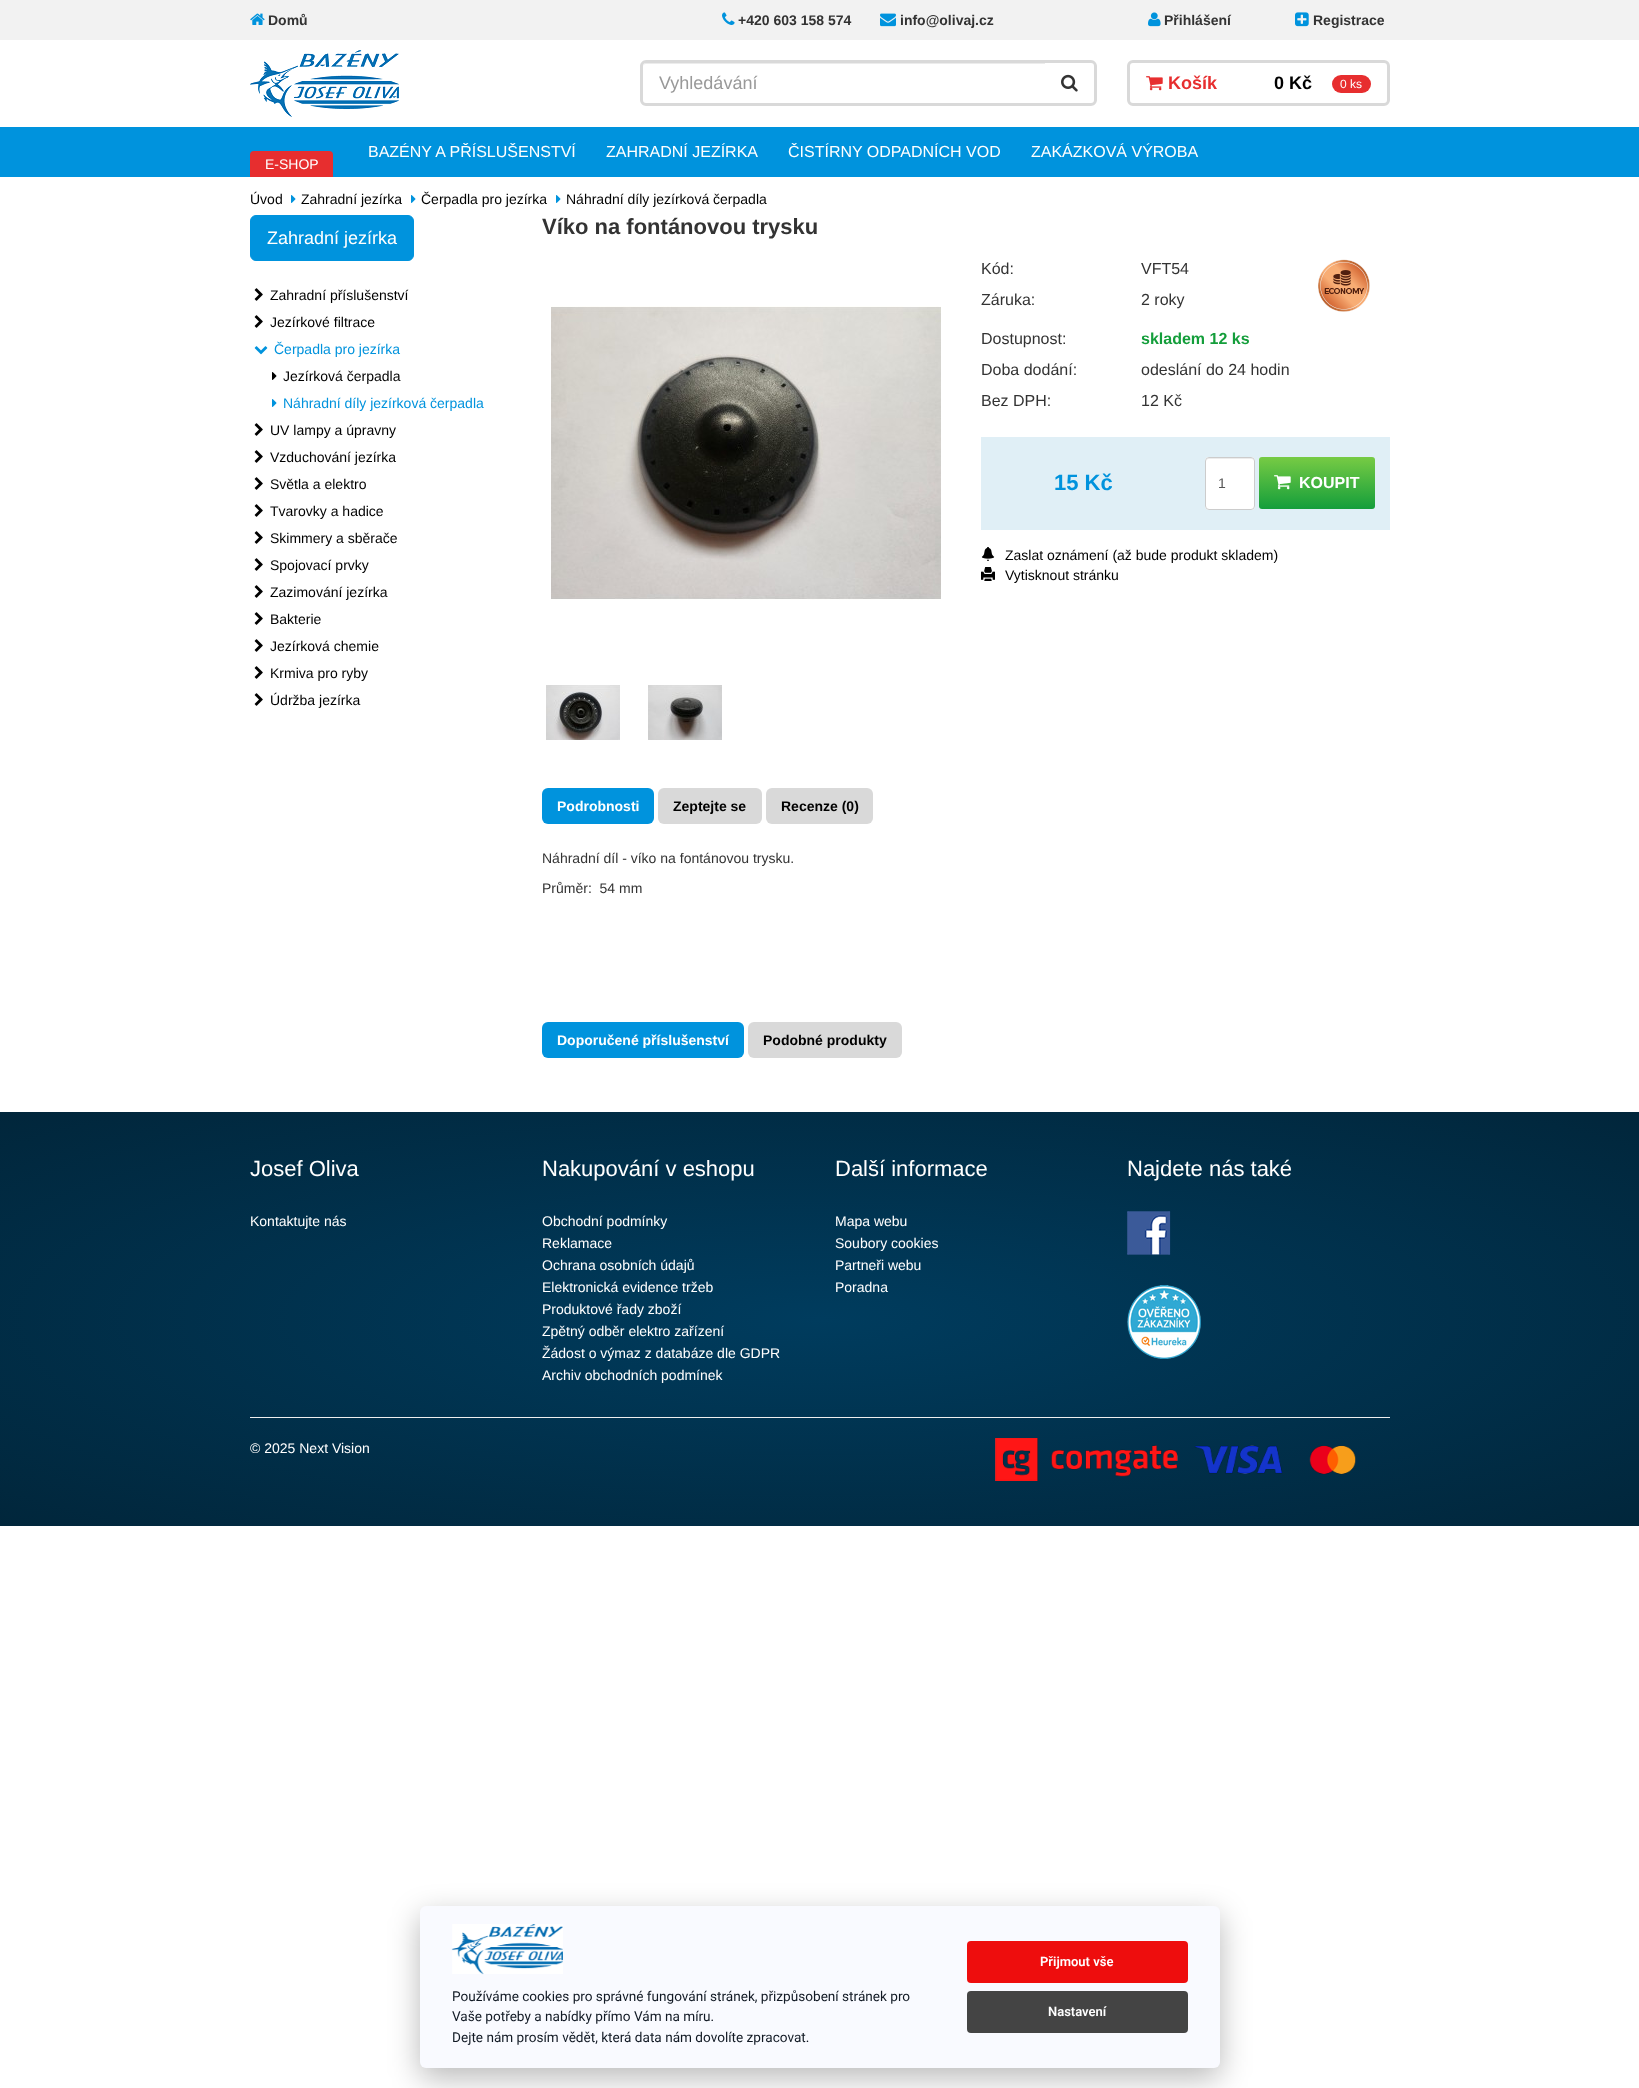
<!DOCTYPE html>
<meta charset="utf-8">
<style>body { margin: 0 } canvas { display: block }</style>
<canvas id="canvas" width="1639" height="2088"></canvas>
<img id="img1" src="img_01.png" hidden>
<img id="img2" src="img_02.png" hidden>
<img id="img3" src="img_03.png" hidden>
<img id="img4" src="img_04.png" hidden>
<img id="img5" src="img_05.png" hidden>
<img id="img6" src="img_06.png" hidden>
<img id="img7" src="img_07.png" hidden>
<img id="img8" src="img_08.png" hidden>
<img id="img9" src="img_09.png" hidden>
<img id="img10" src="img_10.png" hidden>
<img id="img11" src="img_11.png" hidden>
<img id="img12" src="img_12.png" hidden>
<img id="img13" src="img_13.png" hidden>
<img id="img14" src="img_14.png" hidden>
<img id="img15" src="img_15.png" hidden>
<img id="img16" src="img_16.png" hidden>
<img id="img17" src="img_17.png" hidden>
<img id="img18" src="img_18.png" hidden>
<img id="img19" src="img_19.png" hidden>
<img id="img20" src="img_20.png" hidden>
<img id="img21" src="img_21.png" hidden>
<img id="img22" src="img_22.png" hidden>
<img id="img23" src="img_23.png" hidden>
<script>
window.onload = function () {
	const canvas = document.getElementById("canvas");
	const ctx = canvas.getContext("2d");
	ctx.miterLimit = 4;
	ctx.fontKerning = "normal";
	function txt(s, x, y) {
		ctx.fillText(s, x, y);
	}
	function fill(x, y, w, h) {
		ctx.fillRect(x, y, w, h);
	}
	function round(x, y, w, h, r) {
		ctx.beginPath();
		ctx.roundRect(x, y, w, h, r);
		ctx.fill();
	}
	function img(id, x, y, w, h) {
		ctx.drawImage(document.getElementById(id), x, y, w, h);
	}
	let gradient;

	ctx.fillStyle = "#FFFFFF";
	fill(0, 0, 1639, 2088);
	ctx.fillStyle = "#F2F2F2";
	fill(0, 0, 1639, 40);
	img("img1", 250, 13, 15, 12);
	img("img2", 722, 12, 13, 13);
	img("img3", 880, 13, 16, 14);
	img("img4", 1148, 12, 13, 15);
	img("img5", 1295, 12, 14, 15);
	img("img6", 250, 50, 149, 67);
	ctx.fillStyle = "#ECECEC";
	ctx.beginPath();
	ctx.moveTo(646, 64);
	ctx.lineTo(1046, 64);
	ctx.lineTo(1046, 63);
	ctx.lineTo(646, 63);
	ctx.bezierCurveTo(644, 63, 643, 65, 643, 67);
	ctx.bezierCurveTo(643, 65, 644, 64, 646, 64);
	ctx.closePath();
	ctx.fill();
	ctx.fillStyle = "#D9D9D9";
	ctx.beginPath();
	ctx.moveTo(646, 60);
	ctx.lineTo(1046, 60);
	ctx.lineTo(1046, 106);
	ctx.lineTo(646, 106);
	ctx.bezierCurveTo(643, 106, 640, 103, 640, 100);
	ctx.lineTo(640, 66);
	ctx.bezierCurveTo(640, 63, 643, 60, 646, 60);
	ctx.closePath();
	ctx.moveTo(646, 63);
	ctx.lineTo(1046, 63);
	ctx.lineTo(1046, 103);
	ctx.lineTo(646, 103);
	ctx.bezierCurveTo(644, 103, 643, 102, 643, 100);
	ctx.lineTo(643, 66);
	ctx.bezierCurveTo(643, 64, 644, 63, 646, 63);
	ctx.closePath();
	ctx.fill("evenodd");
	ctx.fillStyle = "#FFFFFF";
	ctx.beginPath();
	ctx.roundRect(1045, 60, 52, 46, [0, 6, 6, 0]);
	ctx.fill();
	ctx.fillStyle = "#D9D9D9";
	ctx.beginPath();
	ctx.moveTo(1045, 60);
	ctx.lineTo(1091, 60);
	ctx.bezierCurveTo(1094, 60, 1097, 63, 1097, 66);
	ctx.lineTo(1097, 100);
	ctx.bezierCurveTo(1097, 103, 1094, 106, 1091, 106);
	ctx.lineTo(1045, 106);
	ctx.closePath();
	ctx.moveTo(1045, 63);
	ctx.lineTo(1091, 63);
	ctx.bezierCurveTo(1093, 63, 1094, 64, 1094, 66);
	ctx.lineTo(1094, 100);
	ctx.bezierCurveTo(1094, 102, 1093, 103, 1091, 103);
	ctx.lineTo(1045, 103);
	ctx.closePath();
	ctx.fill("evenodd");
	img("img7", 1061, 74, 17, 18);
	ctx.beginPath();
	ctx.roundRect(1128.5, 61.5, 260, 43, 4.5);
	ctx.strokeStyle = "#D9D9D9";
	ctx.lineWidth = 3;
	ctx.stroke();
	img("img8", 1146, 76, 17, 15);
	ctx.fillStyle = "#E72E2F";
	round(1332, 75, 39, 18, 9);
	ctx.fillStyle = "#0093DD";
	fill(0, 127, 1639, 50);
	ctx.fillStyle = "#E72E2F";
	ctx.beginPath();
	ctx.roundRect(250, 151, 83, 26, [4, 4, 0, 0]);
	ctx.fill();
	img("img9", 291, 195, 5, 8);
	img("img9", 411, 195, 5, 8);
	img("img9", 556, 195, 5, 8);
	ctx.fillStyle = "#0093DD";
	ctx.beginPath();
	ctx.roundRect(250.5, 215.5, 163, 45, 5.5);
	ctx.fill();
	ctx.strokeStyle = "#0093DD";
	ctx.lineWidth = 1;
	ctx.stroke();
	img("img10", 254, 288, 9, 13);
	img("img10", 254, 315, 9, 13);
	img("img11", 254, 346, 14, 9);
	img("img12", 272, 372, 5, 8);
	img("img9", 272, 399, 5, 8);
	img("img10", 254, 423, 9, 13);
	img("img10", 254, 450, 9, 13);
	img("img10", 254, 477, 9, 13);
	img("img10", 254, 504, 9, 13);
	img("img10", 254, 531, 9, 13);
	img("img10", 254, 558, 9, 13);
	img("img10", 254, 585, 9, 13);
	img("img10", 254, 612, 9, 13);
	img("img10", 254, 639, 9, 13);
	img("img10", 254, 666, 9, 13);
	img("img10", 254, 693, 9, 13);
	img("img13", 551, 306, 390, 294);
	img("img14", 546, 685, 74, 55);
	img("img15", 648, 685, 74, 55);
	img("img16", 1318, 259, 52, 53);
	ctx.fillStyle = "#E0EFF6";
	fill(981, 437, 409, 93);
	ctx.fillStyle = "#FFFFFF";
	round(1205, 457, 50, 53, 4);
	ctx.fillStyle = "#ECECEC";
	ctx.beginPath();
	ctx.moveTo(1209, 459);
	ctx.lineTo(1251, 459);
	ctx.bezierCurveTo(1253, 459, 1254, 460, 1254, 462);
	ctx.bezierCurveTo(1254, 456, 1248, 458, 1244, 458);
	ctx.lineTo(1216, 458);
	ctx.bezierCurveTo(1212, 458, 1206, 456, 1206, 462);
	ctx.bezierCurveTo(1206, 460, 1207, 459, 1209, 459);
	ctx.closePath();
	ctx.fill();
	ctx.beginPath();
	ctx.roundRect(1205.5, 457.5, 49, 52, 3.5);
	ctx.strokeStyle = "#CCCCCC";
	ctx.stroke();
	gradient = ctx.createLinearGradient(1317, 457, 1317, 509);
	gradient.addColorStop(0, "#77CB44");
	gradient.addColorStop(1, "#149E3B");
	ctx.fillStyle = gradient;
	round(1259, 457, 116, 52, 3);
	img("img17", 1274, 475, 17, 15);
	img("img18", 981, 547, 14, 14);
	img("img19", 981, 567, 14, 14);
	ctx.fillStyle = "#0093DD";
	round(542, 788, 112, 36, 6);
	ctx.fillStyle = "#D9D9D9";
	round(658, 788, 104, 36, 6);
	round(766, 788, 107, 36, 6);
	ctx.fillStyle = "#0093DD";
	round(542, 1022, 202, 36, 6);
	ctx.fillStyle = "#D9D9D9";
	round(748, 1022, 154, 36, 6);
	gradient = ctx.createRadialGradient(820, 5217.48, 0, 820, 5217.48, 1159);
	gradient.addColorStop(0, "#003C5E");
	gradient.addColorStop(1, "#01263B");
	ctx.fillStyle = gradient;
	ctx.beginPath();
	ctx.rect(0, 1112, 1639, 414);
	ctx.save();
	ctx.clip();
	ctx.scale(1, 293 / 1159);
	ctx.fillRect(0, 0, 1639, 8260);
	ctx.restore();
	img("img20", 1127, 1211, 44, 44);
	img("img21", 1127, 1285, 74, 74);
	ctx.fillStyle = "#EEEEEE";
	fill(250, 1417, 1140, 1);
	img("img22", 995, 1438, 361, 43);
	ctx.fillStyle = "rgba(2, 2, 3, 0.28)";
	ctx.filter = "blur(15px)";
	ctx.beginPath();
	ctx.roundRect(420, 1916, 800, 162, 6);
	ctx.fill();
	ctx.filter = "none";
	ctx.fillStyle = "#F9FAFF";
	round(420, 1906, 800, 162, 6);
	img("img23", 451, 1924, 112, 51);
	ctx.fillStyle = "#EE0D0D";
	round(967, 1941, 221, 42, 4);
	ctx.fillStyle = "#444444";
	round(967, 1991, 221, 42, 4);
	ctx.font = "bold 14px Liberation Sans";
	ctx.fillStyle = "#333333";
	txt("Domů", 268, 25);
	txt("+420 603 158 574", 738, 25);
	txt("info@olivaj.cz", 900, 25);
	txt("Přihlášení", 1164, 25);
	txt("Registrace", 1313, 25);
	ctx.font = "18px Liberation Sans";
	ctx.fillStyle = "#999999";
	txt("Vyhledávání", 659, 89);
	ctx.font = "bold 18px Liberation Sans";
	ctx.fillStyle = "#E72E2F";
	txt("Košík", 1168, 89);
	ctx.fillStyle = "#000000";
	txt("0 Kč", 1274, 89);
	ctx.font = "12px Liberation Sans";
	ctx.fillStyle = "#FFFFFF";
	txt("0 ks", 1340, 88);
	ctx.font = "16px Liberation Sans";
	txt("BAZÉNY A PŘÍSLUŠENSTVÍ", 368, 157);
	txt("ZAHRADNÍ JEZÍRKA", 606, 157);
	txt("ČISTÍRNY ODPADNÍCH VOD", 788, 157);
	txt("ZAKÁZKOVÁ VÝROBA", 1031, 157);
	ctx.font = "14px Liberation Sans";
	txt("E-SHOP", 265, 169);
	ctx.fillStyle = "#000000";
	txt("Úvod", 250, 204);
	txt("Zahradní jezírka", 301, 204);
	txt("Čerpadla pro jezírka", 421, 204);
	txt("Náhradní díly jezírková čerpadla", 566, 204);
	ctx.font = "18px Liberation Sans";
	ctx.fillStyle = "#FFFFFF";
	txt("Zahradní jezírka", 267, 244);
	ctx.font = "14px Liberation Sans";
	ctx.fillStyle = "#000000";
	txt("Zahradní příslušenství", 270, 300);
	txt("Jezírkové filtrace", 270, 327);
	ctx.fillStyle = "#0093DD";
	txt("Čerpadla pro jezírka", 274, 354);
	ctx.fillStyle = "#000000";
	txt("Jezírková čerpadla", 283, 381);
	ctx.fillStyle = "#0093DD";
	txt("Náhradní díly jezírková čerpadla", 283, 408);
	ctx.fillStyle = "#000000";
	txt("UV lampy a úpravny", 270, 435);
	txt("Vzduchování jezírka", 270, 462);
	txt("Světla a elektro", 270, 489);
	txt("Tvarovky a hadice", 270, 516);
	txt("Skimmery a sběrače", 270, 543);
	txt("Spojovací prvky", 270, 570);
	txt("Zazimování jezírka", 270, 597);
	txt("Bakterie", 270, 624);
	txt("Jezírková chemie", 270, 651);
	txt("Krmiva pro ryby", 270, 678);
	txt("Údržba jezírka", 270, 705);
	ctx.font = "bold 22px Liberation Sans";
	ctx.fillStyle = "#333333";
	txt("Víko na fontánovou trysku", 542, 234);
	ctx.font = "16px Liberation Sans";
	txt("Kód:", 981, 274);
	txt("VFT54", 1141, 274);
	txt("Záruka:", 981, 305);
	txt("2 roky", 1141, 305);
	txt("Dostupnost:", 981, 344);
	ctx.font = "bold 16px Liberation Sans";
	ctx.fillStyle = "#149E3B";
	txt("skladem 12 ks", 1141, 344);
	ctx.font = "16px Liberation Sans";
	ctx.fillStyle = "#333333";
	txt("Doba dodání:", 981, 375);
	txt("odeslání do 24 hodin", 1141, 375);
	txt("Bez DPH:", 981, 406);
	txt("12 Kč", 1141, 406);
	ctx.font = "bold 22px Liberation Sans";
	ctx.fillStyle = "#0093DD";
	txt("15 Kč", 1054, 490);
	ctx.font = "14px Liberation Sans";
	ctx.fillStyle = "#555555";
	txt("1", 1218, 488);
	ctx.font = "bold 16px Liberation Sans";
	ctx.fillStyle = "#FFFFFF";
	txt("KOUPIT", 1299, 488);
	ctx.font = "14px Liberation Sans";
	ctx.fillStyle = "#000000";
	txt("Zaslat oznámení (až bude produkt skladem)", 1005, 560);
	txt("Vytisknout stránku", 1005, 580);
	ctx.font = "bold 14px Liberation Sans";
	ctx.fillStyle = "#FFFFFF";
	txt("Podrobnosti", 557, 811);
	ctx.fillStyle = "#000000";
	txt("Zeptejte se", 673, 811);
	txt("Recenze (0)", 781, 811);
	ctx.font = "14px Liberation Sans";
	ctx.fillStyle = "#333333";
	txt("Náhradní díl - víko na fontánovou trysku.", 542, 863);
	txt("Průměr:  54 mm", 542, 893);
	ctx.font = "bold 14px Liberation Sans";
	ctx.fillStyle = "#FFFFFF";
	txt("Doporučené příslušenství", 557, 1045);
	ctx.fillStyle = "#000000";
	txt("Podobné produkty", 763, 1045);
	ctx.font = "22px Liberation Sans";
	ctx.fillStyle = "#FFFFFF";
	txt("Josef Oliva", 250, 1176);
	ctx.font = "14px Liberation Sans";
	txt("Kontaktujte nás", 250, 1226);
	ctx.font = "22px Liberation Sans";
	txt("Nakupování v eshopu", 542, 1176);
	ctx.font = "14px Liberation Sans";
	txt("Obchodní podmínky", 542, 1226);
	txt("Reklamace", 542, 1248);
	txt("Ochrana osobních údajů", 542, 1270);
	txt("Elektronická evidence tržeb", 542, 1292);
	txt("Produktové řady zboží", 542, 1314);
	txt("Zpětný odběr elektro zařízení", 542, 1336);
	txt("Žádost o výmaz z databáze dle GDPR", 542, 1358);
	txt("Archiv obchodních podmínek", 542, 1380);
	ctx.font = "22px Liberation Sans";
	txt("Další informace", 835, 1176);
	ctx.font = "14px Liberation Sans";
	txt("Mapa webu", 835, 1226);
	txt("Soubory cookies", 835, 1248);
	txt("Partneři webu", 835, 1270);
	txt("Poradna", 835, 1292);
	ctx.font = "22px Liberation Sans";
	txt("Najdete nás také", 1127, 1176);
	ctx.font = "14px Liberation Sans";
	txt("© 2025 Next Vision", 250, 1453);
	ctx.font = "13.6px Roboto";
	ctx.fillStyle = "#111924";
	txt("Používáme cookies pro správné fungování stránek, přizpůsobení stránek pro", 452, 2001);
	txt("Vaše potřeby a nabídky přímo Vám na míru.", 452, 2021);
	txt("Dejte nám prosím vědět, která data nám dovolíte zpracovat.", 452, 2042);
	ctx.font = "600 13px Roboto";
	ctx.fillStyle = "#FFFFFF";
	txt("Přijmout vše", 1040, 1966);
	txt("Nastavení", 1048, 2016);
};
</script>
